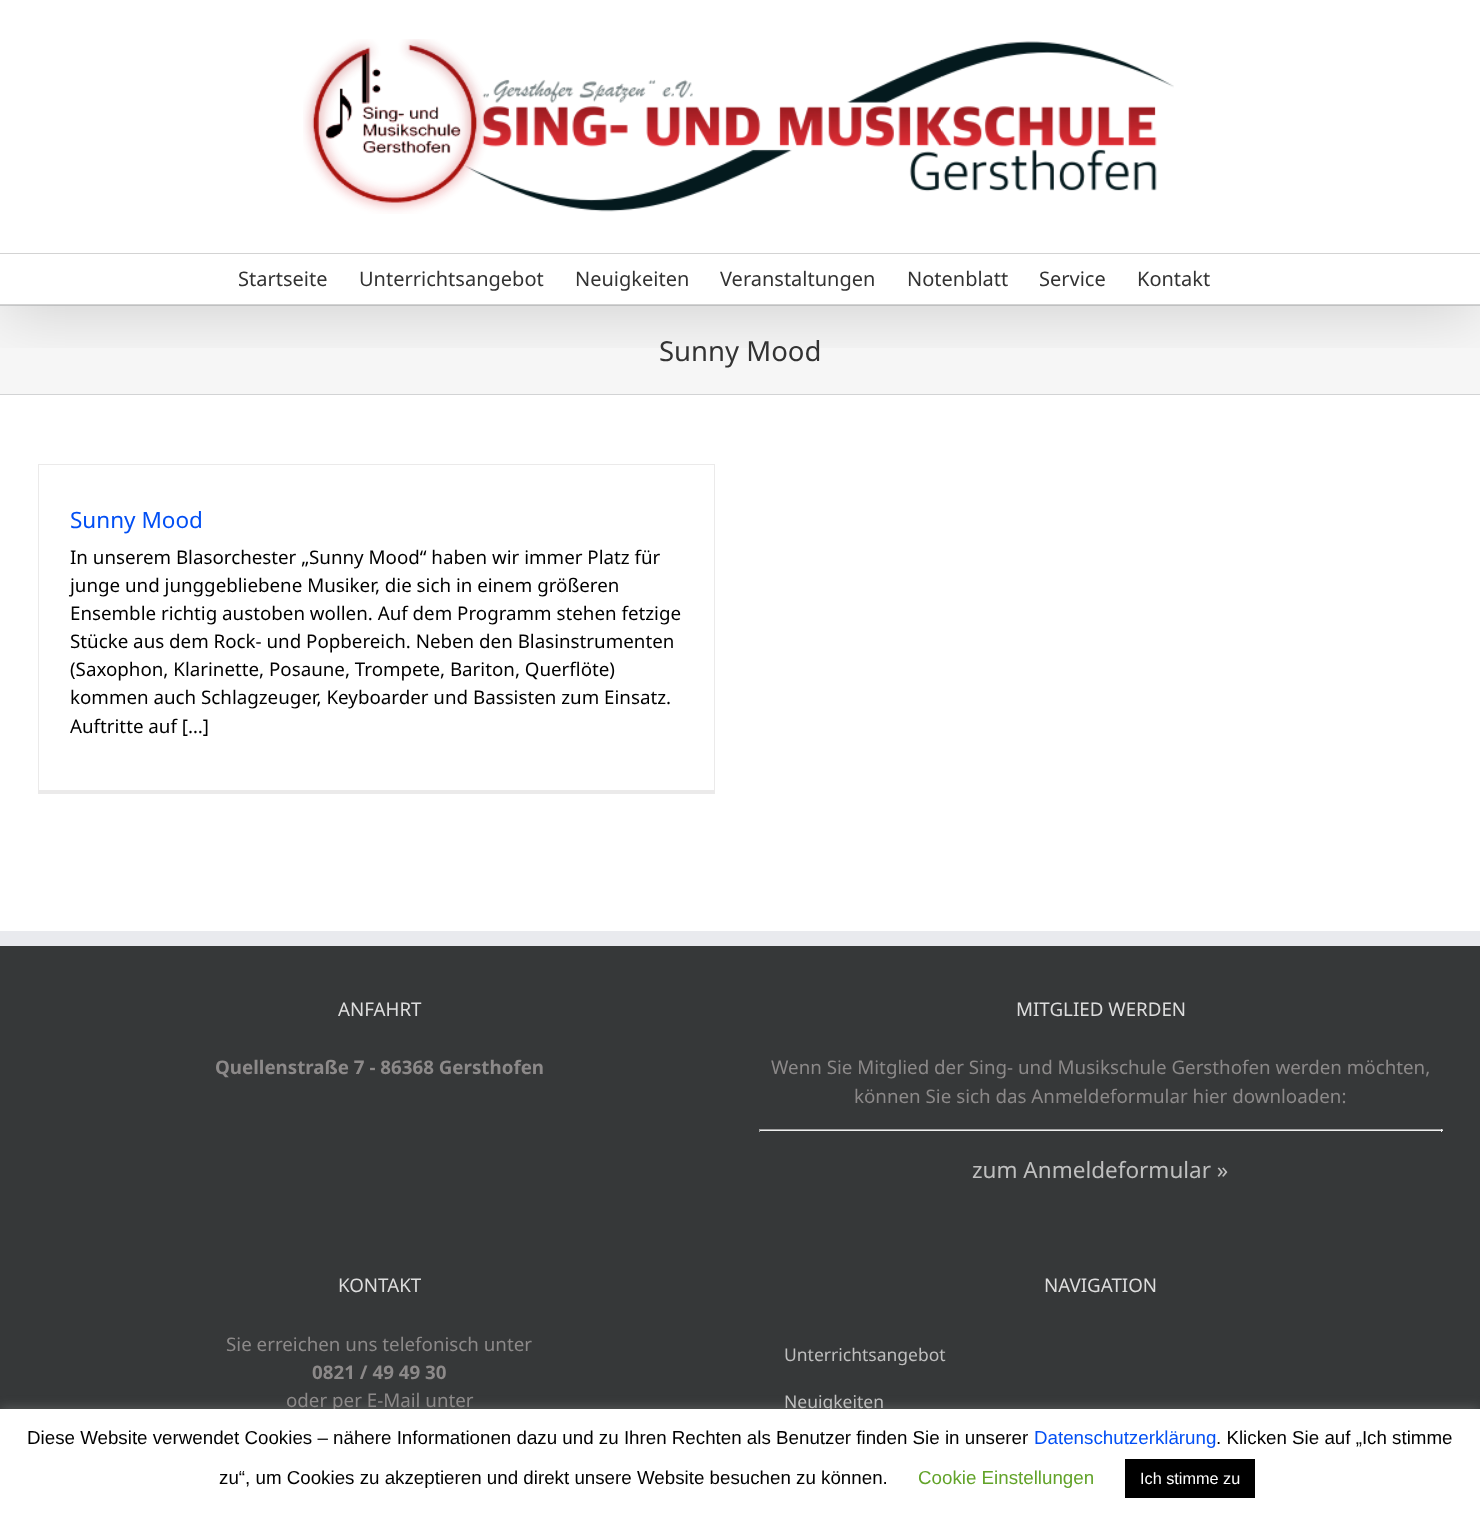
<!DOCTYPE html>
<meta charset="utf-8">
<style>body { margin: 0 } canvas { display: block }</style>
<canvas id="canvas" width="1480" height="1518"></canvas>
<img id="img1" src="img_01.png" hidden>
<script>
window.onload = function () {
	const canvas = document.getElementById("canvas");
	const ctx = canvas.getContext("2d");
	ctx.miterLimit = 4;
	ctx.fontKerning = "normal";
	function txt(s, x, y) {
		ctx.fillText(s, x, y);
	}
	function fill(x, y, w, h) {
		ctx.fillRect(x, y, w, h);
	}
	function img(id, x, y, w, h) {
		ctx.drawImage(document.getElementById(id), x, y, w, h);
	}

	ctx.fillStyle = "#FFFFFF";
	fill(0, 0, 1480, 1518);
	ctx.fillStyle = "#F6F6F6";
	fill(0, 306, 1480, 88);
	ctx.fillStyle = "#D2D3D4";
	fill(0, 305, 1480, 1);
	fill(0, 394, 1480, 1);
	ctx.save();
	ctx.beginPath();
	ctx.rect(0, 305, 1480, 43);
	ctx.clip();
	ctx.fillStyle = "rgba(0, 0, 0, 0.14)";
	ctx.filter = "blur(31px)";
	ctx.beginPath();
	ctx.rect(3, 15, 1475, 300);
	ctx.fill();
	ctx.filter = "none";
	ctx.restore();
	ctx.fillStyle = "#D3D3D3";
	fill(0, 253, 1480, 1);
	img("img1", 303, 39, 871, 175);
	fill(0, 304, 1480, 1);
	ctx.fillStyle = "#EBEAEA";
	fill(38, 464, 677, 1);
	fill(714, 464, 1, 330);
	fill(38, 790, 677, 4);
	fill(38, 464, 1, 330);
	ctx.fillStyle = "#363839";
	fill(0, 946, 1480, 463);
	ctx.fillStyle = "#E9EAEE";
	fill(0, 931, 1480, 15);
	ctx.fillStyle = "#9F9F9F";
	fill(759, 1129, 684, 1);
	ctx.fillStyle = "#EEEEEE";
	fill(1441, 1129, 1, 3);
	fill(759, 1130, 684, 1);
	ctx.fillStyle = "#9F9F9F";
	fill(759, 1129, 1, 3);
	ctx.fillStyle = "rgba(172, 171, 171, 0.3)";
	ctx.filter = "blur(6px)";
	ctx.beginPath();
	ctx.rect(0, 1408, 1480, 110);
	ctx.fill();
	ctx.filter = "none";
	ctx.font = "20px Noto Sans";
	ctx.fillStyle = "#333333";
	txt("Startseite", 238, 286);
	txt("Unterrichtsangebot", 359, 286);
	txt("Neuigkeiten", 575, 286);
	txt("Veranstaltungen", 720, 286);
	txt("Notenblatt", 907, 286);
	txt("Service", 1039, 286);
	txt("Kontakt", 1137, 286);
	ctx.font = "27.5px Noto Sans";
	txt("Sunny Mood", 659, 361);
	ctx.font = "22.5px Noto Sans";
	ctx.fillStyle = "#024FF4";
	txt("Sunny Mood", 70, 528);
	ctx.font = "18.75px Noto Sans";
	ctx.fillStyle = "#000000";
	txt("In unserem Blasorchester „Sunny Mood“ haben wir immer Platz für", 70, 564);
	txt("junge und junggebliebene Musiker, die sich in einem größeren", 70, 592);
	txt("Ensemble richtig austoben wollen. Auf dem Programm stehen fetzige", 70, 620);
	txt("Stücke aus dem Rock- und Popbereich. Neben den Blasinstrumenten", 70, 648);
	txt("(Saxophon, Klarinette, Posaune, Trompete, Bariton, Querflöte)", 70, 676);
	txt("kommen auch Schlagzeuger, Keyboarder und Bassisten zum Einsatz.", 70, 704);
	txt("Auftritte auf […]", 70, 733);
	ctx.fillStyle = "#DDDDDD";
	txt("ANFAHRT", 338, 1016);
	ctx.font = "bold 18.75px Noto Sans";
	ctx.fillStyle = "#8C8989";
	txt("Quellenstraße 7 - 86368 Gersthofen", 215, 1074);
	ctx.font = "18.75px Noto Sans";
	ctx.fillStyle = "#DDDDDD";
	txt("MITGLIED WERDEN", 1016, 1016);
	ctx.fillStyle = "#8C8989";
	txt("Wenn Sie Mitglied der Sing- und Musikschule Gersthofen werden möchten,", 771, 1074);
	txt("können Sie sich das Anmeldeformular hier downloaden:", 854, 1103);
	ctx.font = "22.5px Noto Sans";
	ctx.fillStyle = "#BFBFBF";
	txt("zum Anmeldeformular »", 972, 1178);
	ctx.font = "18.75px Noto Sans";
	ctx.fillStyle = "#DDDDDD";
	txt("KONTAKT", 338, 1292);
	ctx.fillStyle = "#8C8989";
	txt("Sie erreichen uns telefonisch unter", 226, 1351);
	ctx.font = "bold 18.75px Noto Sans";
	txt("0821 / 49 49 30", 312, 1379);
	ctx.font = "18.75px Noto Sans";
	txt("oder per E-Mail unter", 286, 1407);
	ctx.fillStyle = "#DDDDDD";
	txt("NAVIGATION", 1044, 1292);
	ctx.font = "17.5px Noto Sans";
	ctx.fillStyle = "#BFBFBF";
	txt("Unterrichtsangebot", 784, 1361);
	txt("Neuigkeiten", 784, 1408);
	ctx.fillStyle = "#FFFFFF";
	fill(0, 1409, 1480, 109);
	ctx.font = "18.75px Liberation Sans";
	ctx.fillStyle = "#000000";
	txt("Diese Website verwendet Cookies – nähere Informationen dazu und zu Ihren Rechten als Benutzer finden Sie in unserer", 27, 1444);
	ctx.fillStyle = "#024FF4";
	txt("Datenschutzerklärung", 1034, 1444);
	ctx.fillStyle = "#000000";
	txt(". Klicken Sie auf „Ich stimme", 1216, 1444);
	txt("zu“, um Cookies zu akzeptieren und direkt unsere Website besuchen zu können.", 219, 1484);
	ctx.fillStyle = "#62A329";
	txt("Cookie Einstellungen", 918, 1484);
	ctx.fillStyle = "#000000";
	fill(1125, 1459, 130, 39);
	ctx.font = "16.25px Liberation Sans";
	ctx.fillStyle = "#FFFFFF";
	txt("Ich stimme zu", 1140, 1484);
};
</script>
